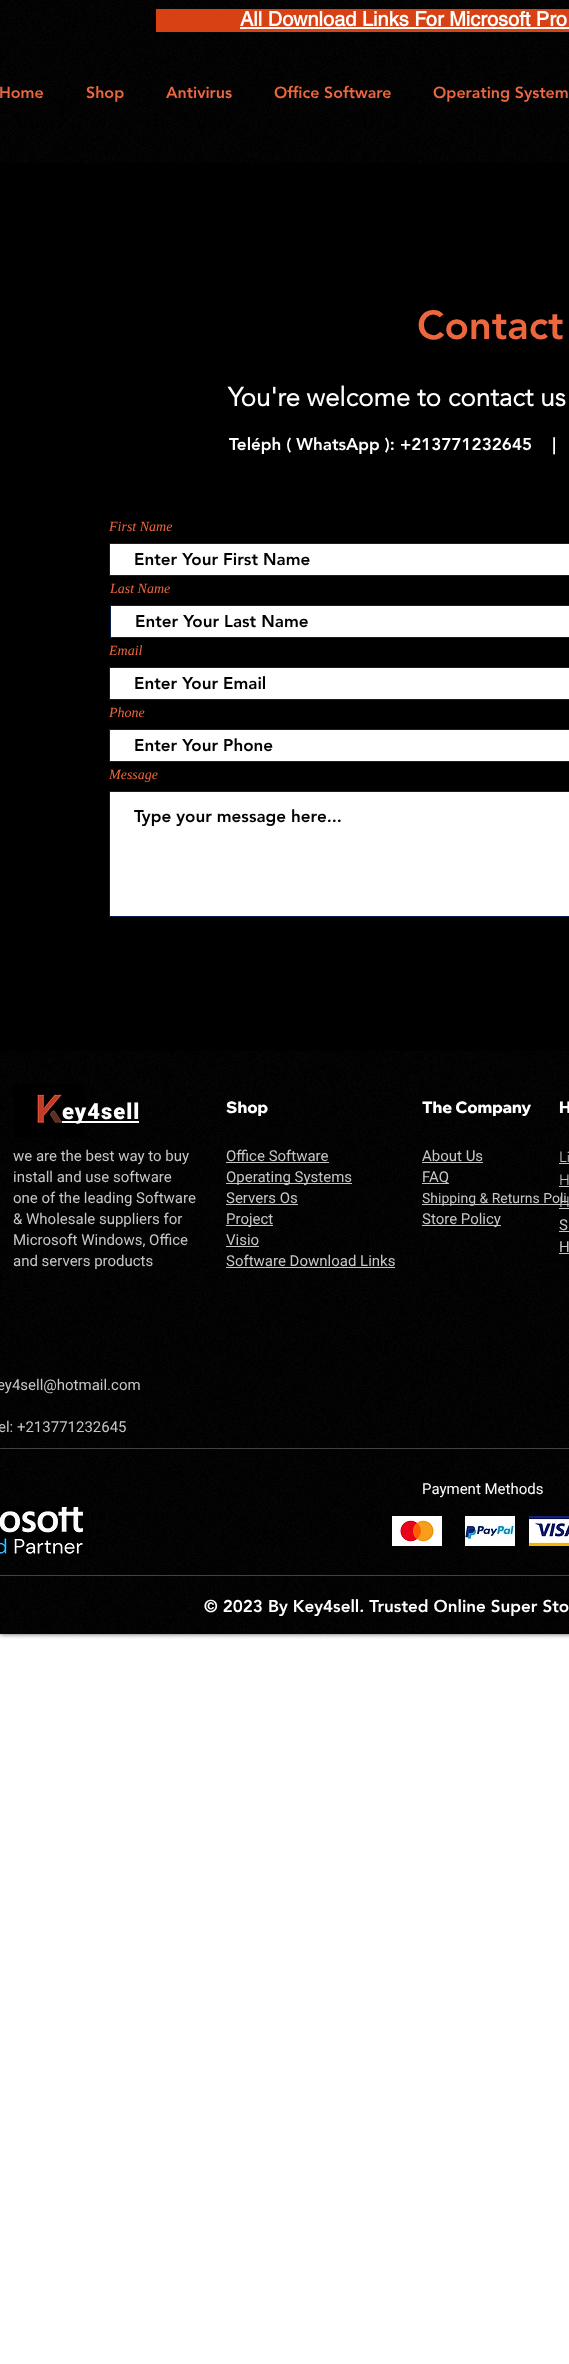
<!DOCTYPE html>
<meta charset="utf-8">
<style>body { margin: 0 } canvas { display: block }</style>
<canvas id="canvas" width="569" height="2364"></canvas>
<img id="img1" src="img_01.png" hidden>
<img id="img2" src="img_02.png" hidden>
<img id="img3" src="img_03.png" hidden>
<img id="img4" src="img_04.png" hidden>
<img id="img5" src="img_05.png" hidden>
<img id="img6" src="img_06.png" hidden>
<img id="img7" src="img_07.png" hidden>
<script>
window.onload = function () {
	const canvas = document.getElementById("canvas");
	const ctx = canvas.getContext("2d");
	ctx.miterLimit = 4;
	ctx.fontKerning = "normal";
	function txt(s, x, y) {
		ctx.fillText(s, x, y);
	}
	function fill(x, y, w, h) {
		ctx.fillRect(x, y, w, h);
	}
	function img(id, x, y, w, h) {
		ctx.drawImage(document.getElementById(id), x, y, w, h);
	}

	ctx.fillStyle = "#FFFFFF";
	fill(0, 0, 569, 2364);
	ctx.fillStyle = "#000000";
	fill(0, 0, 569, 1051);
	img("img1", 0, 0, 569, 163);
	ctx.fillStyle = "#D74114";
	fill(156, 9, 413, 23);
	ctx.fillStyle = "#FFFFFF";
	fill(240, 27, 329, 2);
	ctx.beginPath();
	ctx.rect(109.5, 543.5, 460, 32);
	ctx.fill();
	ctx.strokeStyle = "#071F4E";
	ctx.stroke();
	ctx.beginPath();
	ctx.rect(110.5, 605.5, 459, 32);
	ctx.fill();
	ctx.stroke();
	ctx.beginPath();
	ctx.rect(109.5, 667.5, 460, 32);
	ctx.fill();
	ctx.stroke();
	ctx.beginPath();
	ctx.rect(109.5, 729.5, 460, 32);
	ctx.fill();
	ctx.stroke();
	ctx.beginPath();
	ctx.rect(109.5, 791.5, 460, 125);
	ctx.fill();
	ctx.stroke();
	ctx.fillStyle = "rgba(0, 0, 0, 0.7)";
	ctx.filter = "blur(2.5px)";
	ctx.beginPath();
	ctx.rect(0, 1051, 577, 583);
	ctx.fill();
	ctx.filter = "none";
	ctx.fillStyle = "#000000";
	fill(0, 1051, 569, 583);
	img("img2", 0, 1051, 569, 583);
	ctx.fillStyle = "#C7C7C7";
	fill(226, 1162, 103, 1);
	fill(226, 1183, 126, 1);
	fill(226, 1204, 72, 1);
	fill(226, 1225, 47, 1);
	fill(226, 1246, 33, 1);
	fill(226, 1267, 169, 1);
	fill(422, 1162, 61, 1);
	fill(422, 1183, 27, 1);
	fill(422, 1204, 147, 1);
	fill(422, 1225, 79, 1);
	img("img3", 13, 1084, 72, 53);
	ctx.fillStyle = "#FFFFFF";
	fill(62, 1121, 77, 2);
	ctx.fillStyle = "#C7C7C7";
	fill(559, 1163, 10, 1);
	fill(559, 1186, 10, 1);
	fill(559, 1208, 10, 1);
	fill(559, 1231, 10, 1);
	fill(559, 1253, 10, 1);
	ctx.fillStyle = "#424242";
	fill(0, 1448, 569, 1);
	img("img4", 0, 1507, 89, 48);
	img("img5", 392, 1516, 50, 30);
	img("img6", 465, 1516, 50, 30);
	img("img7", 529, 1516, 40, 30);
	fill(0, 1575, 569, 1);
	ctx.font = "bold 20px helvetica";
	ctx.fillStyle = "#FFFFFF";
	txt("All Download Links For Microsoft Pro", 240, 26);
	ctx.font = "900 16px 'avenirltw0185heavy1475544'";
	ctx.fillStyle = "#ED673E";
	txt("Home", -1, 98);
	txt("Shop", 86, 98);
	txt("Antivirus", 166, 98);
	txt("Office Software", 274, 98);
	txt("Operating System", 433, 98);
	ctx.font = "900 40px 'avenirltw0185heavy1475544'";
	txt("Contact", 417, 339);
	ctx.font = "bold 26px 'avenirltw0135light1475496'";
	ctx.fillStyle = "#FFFFFF";
	txt("You're welcome to contact us", 228, 406);
	ctx.font = "900 17px 'avenirltw0185heavy1475544'";
	txt("Teléph ( WhatsApp ): +213771232645    |", 229, 450);
	ctx.font = "italic 14px Liberation Serif";
	ctx.fillStyle = "#ED673E";
	txt("First Name", 109, 531);
	ctx.font = "900 17px 'avenirltw0185heavy1475544'";
	ctx.fillStyle = "#000000";
	txt("Enter Your First Name", 134, 565);
	ctx.font = "italic 14px Liberation Serif";
	ctx.fillStyle = "#ED673E";
	txt("Last Name", 110, 593);
	ctx.font = "900 17px 'avenirltw0185heavy1475544'";
	ctx.fillStyle = "#000000";
	txt("Enter Your Last Name", 135, 627);
	ctx.font = "italic 14px Liberation Serif";
	ctx.fillStyle = "#ED673E";
	txt("Email", 109, 655);
	ctx.font = "900 17px 'avenirltw0185heavy1475544'";
	ctx.fillStyle = "#000000";
	txt("Enter Your Email", 134, 689);
	ctx.font = "italic 14px Liberation Serif";
	ctx.fillStyle = "#ED673E";
	txt("Phone", 109, 717);
	ctx.font = "900 17px 'avenirltw0185heavy1475544'";
	ctx.fillStyle = "#000000";
	txt("Enter Your Phone", 134, 751);
	ctx.font = "italic 14px Liberation Serif";
	ctx.fillStyle = "#ED673E";
	txt("Message", 109, 779);
	ctx.font = "900 17px 'avenirltw0185heavy1475544'";
	ctx.fillStyle = "#000000";
	txt("Type your message here...", 134, 822);
	ctx.font = "800 16px Wix Madefor Display";
	ctx.fillStyle = "#FFFFFF";
	txt("Shop", 226, 1113);
	ctx.font = "15px Roboto";
	ctx.fillStyle = "#C7C7C7";
	txt("Office Software", 226, 1161);
	txt("Operating Systems", 226, 1182);
	txt("Servers Os", 226, 1203);
	txt("Project", 226, 1224);
	txt("Visio", 226, 1245);
	txt("Software Download Links", 226, 1266);
	ctx.font = "800 16px Wix Madefor Display";
	ctx.fillStyle = "#FFFFFF";
	txt("The Company", 422, 1113);
	ctx.font = "15px Roboto";
	ctx.fillStyle = "#C7C7C7";
	txt("About Us", 422, 1161);
	txt("FAQ", 422, 1182);
	ctx.font = "14px Roboto";
	txt("Shipping & Returns Poli", 422, 1203);
	ctx.font = "15px Roboto";
	txt("Store Policy", 422, 1224);
	ctx.letterSpacing = "1px";
	ctx.font = "900 22px Roboto";
	ctx.fillStyle = "#FFFFFF";
	txt("ey4sell", 62, 1119);
	ctx.letterSpacing = "0px";
	ctx.font = "15px Roboto";
	ctx.fillStyle = "#C7C7C7";
	txt("we are the best way to buy", 13, 1161);
	txt("install and use software", 13, 1182);
	txt("one of the leading Software", 13, 1203);
	txt("& Wholesale suppliers for", 13, 1224);
	txt("Microsoft Windows, Office", 13, 1245);
	txt("and servers products", 13, 1266);
	ctx.font = "800 16px Wix Madefor Display";
	ctx.fillStyle = "#FFFFFF";
	txt("H", 559, 1113);
	ctx.font = "300 15px 'avenirltw0135light1475496'";
	ctx.fillStyle = "#C7C7C7";
	txt("Li", 559, 1162);
	txt("H", 559, 1185);
	txt("H", 559, 1207);
	ctx.font = "15px Roboto";
	txt("S", 559, 1230);
	txt("H", 559, 1252);
	txt("ey4sell@hotmail.com", -3, 1390);
	txt("el: +213771232645", -2, 1432);
	ctx.fillStyle = "#FFFFFF";
	txt("Payment Methods", 422, 1494);
	ctx.font = "900 17px 'avenirltw0185heavy1475544'";
	txt("© 2023 By Key4sell. Trusted Online Super Sto", 204, 1612);
};
</script>
